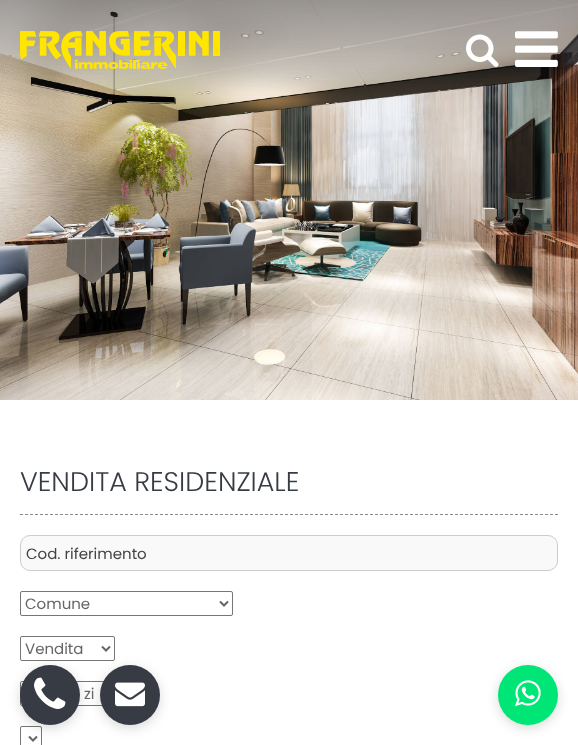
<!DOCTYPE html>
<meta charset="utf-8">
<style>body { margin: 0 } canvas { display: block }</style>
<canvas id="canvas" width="578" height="745"></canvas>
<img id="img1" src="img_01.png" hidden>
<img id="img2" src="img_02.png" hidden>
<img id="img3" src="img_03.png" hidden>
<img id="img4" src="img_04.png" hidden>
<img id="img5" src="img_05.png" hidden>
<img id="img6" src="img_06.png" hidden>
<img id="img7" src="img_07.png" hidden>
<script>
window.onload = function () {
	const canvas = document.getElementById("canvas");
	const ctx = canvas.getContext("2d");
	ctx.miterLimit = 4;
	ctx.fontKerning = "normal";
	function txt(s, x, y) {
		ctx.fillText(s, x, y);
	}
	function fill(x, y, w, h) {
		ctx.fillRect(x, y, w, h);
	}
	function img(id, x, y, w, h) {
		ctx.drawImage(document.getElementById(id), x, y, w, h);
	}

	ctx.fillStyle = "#FFFFFF";
	fill(0, 0, 578, 745);
	img("img1", 0, 0, 578, 400);
	img("img2", 20, 31, 200, 38);
	img("img3", 466, 34, 33, 33);
	img("img4", 515, 31, 43, 36);
	ctx.beginPath();
	ctx.moveTo(20, 514.5);
	ctx.lineTo(558, 514.5);
	ctx.strokeStyle = "#888888";
	ctx.setLineDash([3, 2]);
	ctx.stroke();
	ctx.fillStyle = "#F9F9F9";
	ctx.beginPath();
	ctx.roundRect(20.5, 535.5, 537, 35, 9.5);
	ctx.fill();
	ctx.strokeStyle = "#CCCCCC";
	ctx.setLineDash([]);
	ctx.stroke();
	ctx.beginPath();
	ctx.roundRect(20.5, 591.5, 212, 24, 1.5);
	ctx.strokeStyle = "#767676";
	ctx.stroke();
	ctx.beginPath();
	ctx.moveTo(220, 601.5);
	ctx.lineTo(224, 605.5);
	ctx.lineTo(228, 601.5);
	ctx.strokeStyle = "#666666";
	ctx.lineWidth = 2;
	ctx.stroke();
	ctx.beginPath();
	ctx.roundRect(20.5, 636.5, 94, 24, 1.5);
	ctx.strokeStyle = "#767676";
	ctx.lineWidth = 1;
	ctx.stroke();
	ctx.beginPath();
	ctx.moveTo(102, 646.5);
	ctx.lineTo(106, 650.5);
	ctx.lineTo(110, 646.5);
	ctx.strokeStyle = "#666666";
	ctx.lineWidth = 2;
	ctx.stroke();
	ctx.beginPath();
	ctx.roundRect(20.5, 681.5, 135, 24, 1.5);
	ctx.strokeStyle = "#767676";
	ctx.lineWidth = 1;
	ctx.stroke();
	ctx.beginPath();
	ctx.roundRect(20.5, 726.5, 21, 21, 1.5);
	ctx.stroke();
	ctx.beginPath();
	ctx.moveTo(29, 736.5);
	ctx.lineTo(33, 740.5);
	ctx.lineTo(37, 736.5);
	ctx.strokeStyle = "#666666";
	ctx.lineWidth = 2;
	ctx.stroke();
	ctx.fillStyle = "rgba(0, 0, 0, 0.15)";
	ctx.filter = "blur(6px)";
	ctx.beginPath();
	ctx.roundRect(20, 668, 60, 60, 30);
	ctx.fill();
	ctx.filter = "none";
	ctx.fillStyle = "#373B43";
	ctx.beginPath();
	ctx.arc(50, 695, 30, 0, Math.PI * 2);
	ctx.fill();
	img("img5", 34, 677, 32, 32);
	ctx.fillStyle = "rgba(0, 0, 0, 0.15)";
	ctx.filter = "blur(6px)";
	ctx.beginPath();
	ctx.roundRect(100, 668, 60, 60, 30);
	ctx.fill();
	ctx.filter = "none";
	ctx.fillStyle = "#373B43";
	ctx.beginPath();
	ctx.arc(130, 695, 30, 0, Math.PI * 2);
	ctx.fill();
	img("img6", 115, 682, 30, 25);
	ctx.fillStyle = "rgba(0, 0, 0, 0.15)";
	ctx.filter = "blur(6px)";
	ctx.beginPath();
	ctx.roundRect(498, 668, 60, 60, 30);
	ctx.fill();
	ctx.filter = "none";
	ctx.fillStyle = "#00E676";
	ctx.beginPath();
	ctx.arc(528, 695, 30, 0, Math.PI * 2);
	ctx.fill();
	img("img7", 515, 680, 26, 27);
	ctx.font = "300 27px Poppins";
	ctx.fillStyle = "#373B43";
	txt("VENDITA RESIDENZIALE", 20, 491);
	ctx.font = "15px Poppins";
	ctx.fillStyle = "#444444";
	txt("Cod. riferimento", 26, 559);
	ctx.fillStyle = "#666666";
	txt("Comune", 25, 609);
	txt("Vendita", 25, 654);
	txt("zi", 84, 699);
};
</script>
